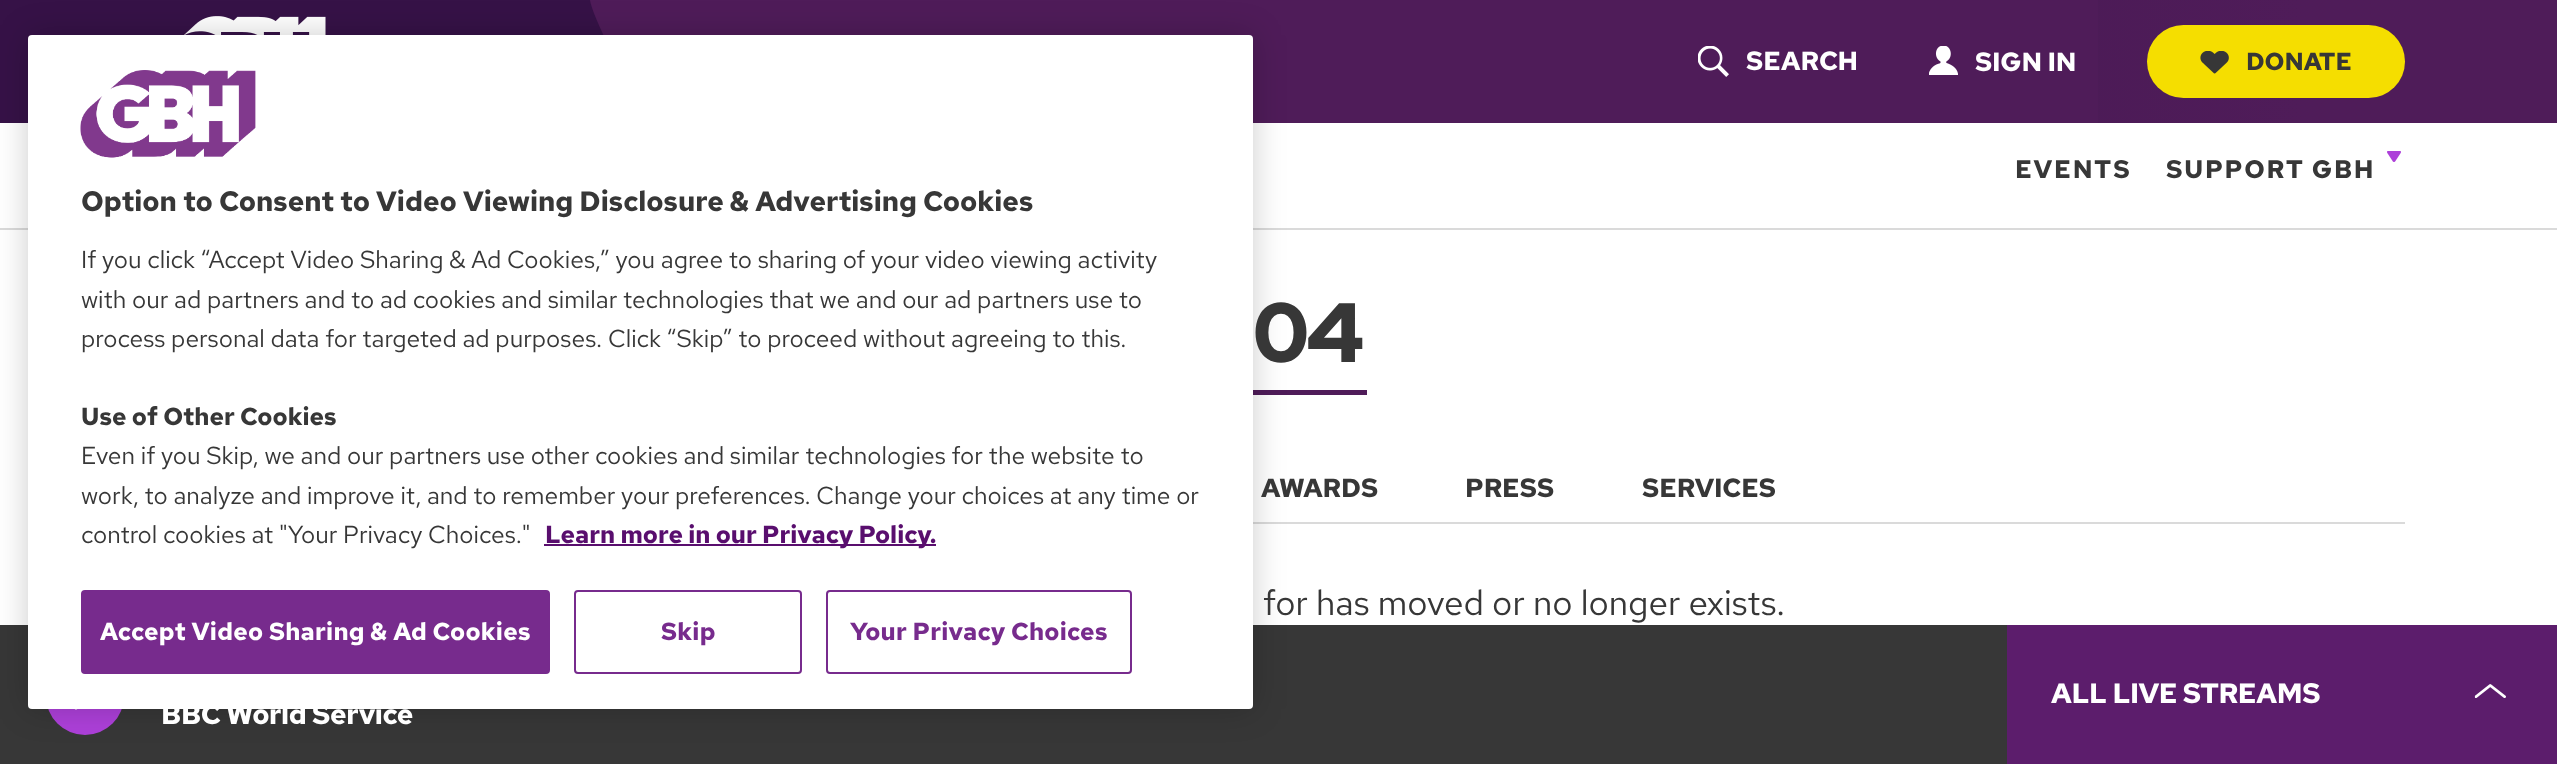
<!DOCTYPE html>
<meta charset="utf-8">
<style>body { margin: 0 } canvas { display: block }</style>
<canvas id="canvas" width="2557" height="764"></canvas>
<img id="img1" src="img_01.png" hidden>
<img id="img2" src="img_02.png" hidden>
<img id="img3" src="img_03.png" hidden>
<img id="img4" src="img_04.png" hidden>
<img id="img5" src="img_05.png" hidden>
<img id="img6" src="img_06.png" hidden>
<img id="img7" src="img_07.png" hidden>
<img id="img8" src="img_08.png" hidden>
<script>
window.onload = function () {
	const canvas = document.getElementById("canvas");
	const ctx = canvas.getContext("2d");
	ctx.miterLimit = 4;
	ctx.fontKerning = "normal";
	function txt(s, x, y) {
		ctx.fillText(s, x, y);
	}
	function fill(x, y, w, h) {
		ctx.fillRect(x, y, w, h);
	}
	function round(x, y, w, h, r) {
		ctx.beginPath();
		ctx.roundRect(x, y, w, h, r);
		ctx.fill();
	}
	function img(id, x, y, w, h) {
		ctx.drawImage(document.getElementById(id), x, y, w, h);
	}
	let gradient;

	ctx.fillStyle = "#FFFFFF";
	fill(0, 0, 2557, 764);
	gradient = ctx.createLinearGradient(0, 115, 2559, 115);
	gradient.addColorStop(0.1, "#361247");
	gradient.addColorStop(0.9, "#4F1C59");
	ctx.fillStyle = gradient;
	fill(0, 0, 2557, 123);
	ctx.fillStyle = "#4F1C59";
	fill(590, 0, 1508, 123);
	ctx.save();
	ctx.beginPath();
	ctx.rect(84, 0, 574, 123);
	ctx.clip();
	ctx.fillStyle = "#361247";
	ctx.beginPath();
	ctx.moveTo(-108, 0);
	ctx.lineTo(590, 0);
	ctx.bezierCurveTo(592, 15, 624, 82, 657, 122);
	ctx.lineTo(-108, 122);
	ctx.closePath();
	ctx.fill();
	ctx.restore();
	img("img1", 184, 16, 142, 19);
	img("img2", 1698, 46, 31, 31);
	img("img3", 1929, 46, 29, 29);
	ctx.fillStyle = "#F5DE00";
	round(2147, 25, 258, 73, 36.5);
	img("img4", 2200, 51, 29, 23);
	ctx.fillStyle = "#DADADA";
	fill(0, 228, 2557, 2);
	img("img5", 2387, 151, 14, 11);
	ctx.fillStyle = "#373737";
	fill(0, 625, 2007, 139);
	ctx.fillStyle = "#5C1D6C";
	fill(2007, 625, 550, 139);
	img("img6", 2474, 684, 32, 14);
	ctx.fillStyle = "#AD40D9";
	round(46, 656, 78, 79, 39);
	img("img7", 74, 709, 4, 1);
	ctx.fillStyle = "#4F1C59";
	fill(1253, 390, 114, 5);
	ctx.fillStyle = "#DADADA";
	fill(1253, 522, 1152, 2);
	ctx.fillStyle = "rgba(0, 0, 0, 0.2)";
	ctx.filter = "blur(16px)";
	ctx.beginPath();
	ctx.roundRect(28, 35, 1225, 674, 4);
	ctx.fill();
	ctx.filter = "none";
	ctx.fillStyle = "#FFFFFF";
	round(28, 35, 1225, 674, 4);
	img("img8", 80, 70, 176, 88);
	ctx.fillStyle = "#590E6E";
	fill(544, 544, 392, 2);
	ctx.fillStyle = "#772B8D";
	ctx.beginPath();
	ctx.roundRect(82, 591, 467, 82, 3);
	ctx.fill();
	ctx.strokeStyle = "#772B8D";
	ctx.lineWidth = 2;
	ctx.stroke();
	ctx.beginPath();
	ctx.roundRect(575, 591, 226, 82, 3);
	ctx.stroke();
	ctx.beginPath();
	ctx.roundRect(827, 591, 304, 82, 3);
	ctx.stroke();
	ctx.font = "bold 26.25px Red Hat Text";
	ctx.fillStyle = "#FFFFFF";
	txt("SEARCH", 1746, 70);
	txt("SIGN IN", 1975, 71);
	ctx.font = "bold 24.5px Red Hat Text";
	ctx.fillStyle = "#373737";
	txt("DONATE", 2246, 70);
	ctx.letterSpacing = "1.75px";
	ctx.font = "bold 25.25px Red Hat Text";
	txt("EVENTS", 2015, 178);
	txt("SUPPORT GBH", 2166, 178);
	ctx.letterSpacing = "-0.4px";
	ctx.font = "bold 28px Red Hat Text";
	ctx.fillStyle = "#FFFFFF";
	txt("ALL LIVE STREAMS", 2051, 703);
	txt("BBC World Service", 161, 724);
	ctx.letterSpacing = "0px";
	ctx.fillStyle = "#373737";
	txt("Option to Consent to Video Viewing Disclosure & Advertising Cookies", 81, 211);
	ctx.font = "24.5px Red Hat Text";
	txt("If you click “Accept Video Sharing & Ad Cookies,” you agree to sharing of your video viewing activity", 81, 268);
	txt("with our ad partners and to ad cookies and similar technologies that we and our ad partners use to", 81, 308);
	txt("process personal data for targeted ad purposes. Click “Skip” to proceed without agreeing to this.", 81, 347);
	ctx.font = "bold 24.5px Red Hat Text";
	txt("Use of Other Cookies", 81, 425);
	ctx.font = "24.5px Red Hat Text";
	txt("Even if you Skip, we and our partners use other cookies and similar technologies for the website to", 81, 464);
	txt("work, to analyze and improve it, and to remember your preferences. Change your choices at any time or", 81, 504);
	txt("control cookies at \"Your Privacy Choices.\"", 81, 543);
	ctx.font = "bold 24.5px Red Hat Text";
	ctx.fillStyle = "#590E6E";
	txt("Learn more in our Privacy Policy.", 545, 543);
	ctx.letterSpacing = "0.25px";
	ctx.fillStyle = "#FFFFFF";
	txt("Accept Video Sharing & Ad Cookies", 100, 640);
	ctx.fillStyle = "#772B8D";
	txt("Skip", 661, 640);
	txt("Your Privacy Choices", 850, 640);
	ctx.letterSpacing = "-4px";
	ctx.font = "bold 84px Red Hat Text";
	ctx.fillStyle = "#373737";
	txt("04", 1252, 362);
	ctx.letterSpacing = "0px";
	ctx.font = "bold 26.25px Red Hat Text";
	txt("AWARDS", 1261, 497);
	txt("PRESS", 1465, 497);
	txt("SERVICES", 1642, 497);
	ctx.font = "35px Red Hat Text";
	txt("for has moved or no longer exists.", 1263, 615);
};
</script>
